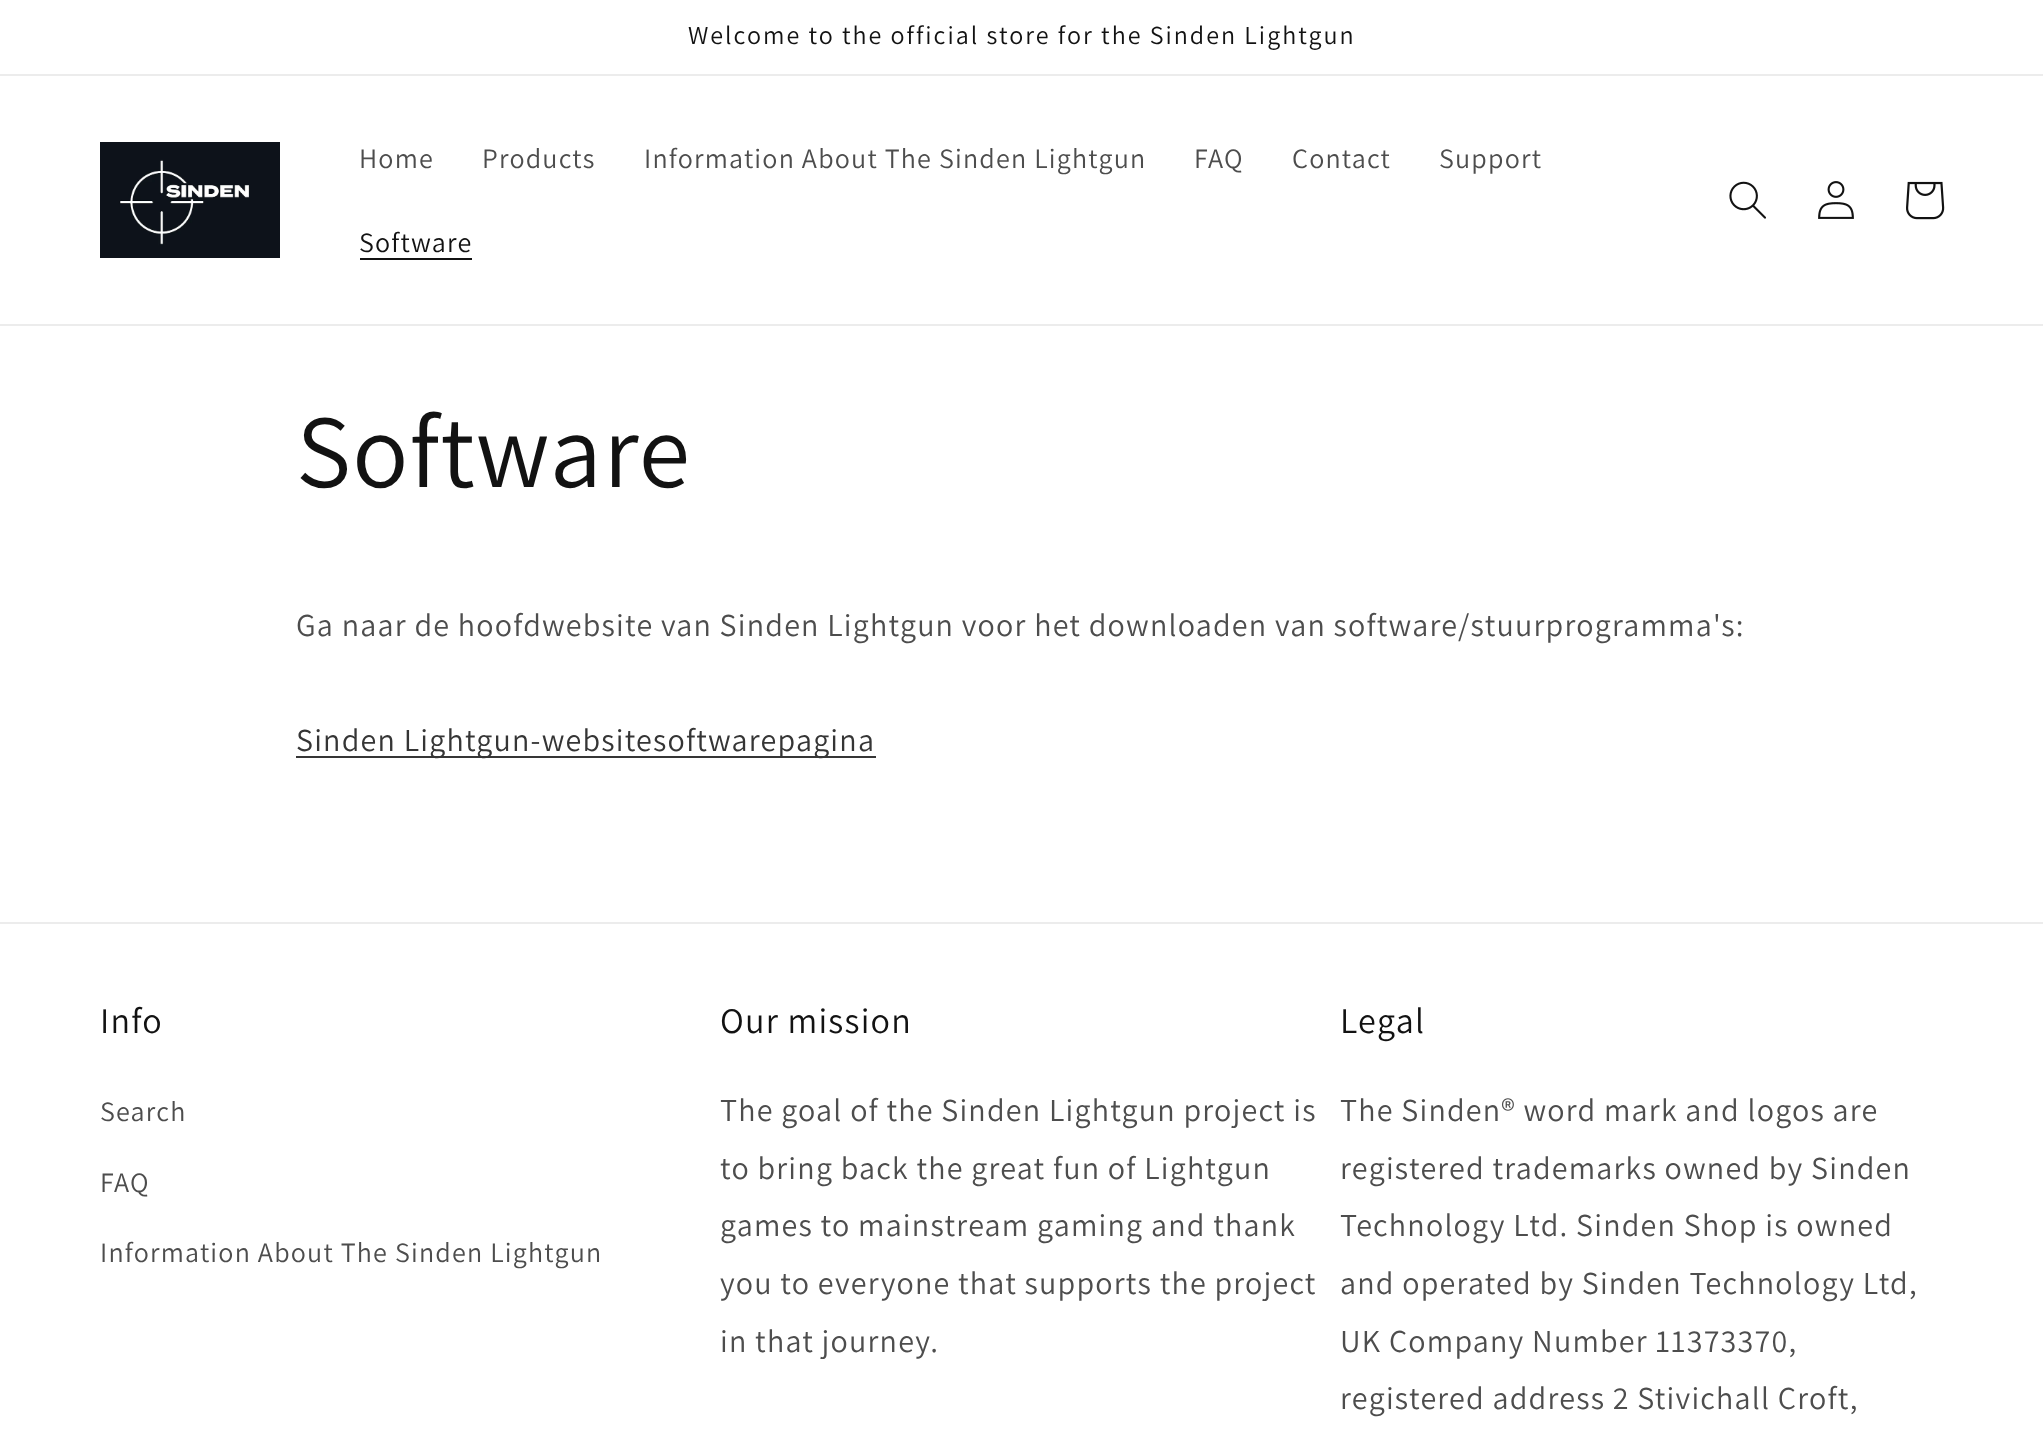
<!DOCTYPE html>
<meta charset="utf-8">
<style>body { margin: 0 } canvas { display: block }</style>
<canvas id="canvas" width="2043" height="1444"></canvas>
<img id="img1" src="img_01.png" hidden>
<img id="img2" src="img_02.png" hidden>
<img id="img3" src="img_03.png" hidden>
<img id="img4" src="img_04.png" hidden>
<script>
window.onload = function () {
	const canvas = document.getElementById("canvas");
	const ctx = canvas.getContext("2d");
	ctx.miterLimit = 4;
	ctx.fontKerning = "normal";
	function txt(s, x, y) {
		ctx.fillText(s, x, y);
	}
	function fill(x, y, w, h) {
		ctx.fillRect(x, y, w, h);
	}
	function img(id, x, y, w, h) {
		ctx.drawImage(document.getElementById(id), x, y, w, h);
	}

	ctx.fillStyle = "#FFFFFF";
	fill(0, 0, 2043, 1444);
	ctx.fillStyle = "#ECECEC";
	fill(0, 74, 2043, 2);
	fill(0, 324, 2043, 2);
	img("img1", 100, 142, 180, 116);
	ctx.fillStyle = "#121212";
	fill(360, 258, 112, 2);
	img("img2", 1729, 181, 37, 38);
	img("img3", 1818, 181, 36, 38);
	img("img4", 1906, 181, 39, 39);
	ctx.fillStyle = "#363636";
	fill(296, 756, 580, 2);
	ctx.fillStyle = "#ECECEC";
	fill(0, 922, 2043, 2);
	ctx.letterSpacing = "2px";
	ctx.font = "26px Assistant";
	ctx.fillStyle = "#121212";
	txt("Welcome to the official store for the Sinden Lightgun", 688, 44);
	ctx.letterSpacing = "1.2px";
	ctx.font = "28px Assistant";
	ctx.fillStyle = "#4D4D4D";
	txt("Home", 359, 168);
	txt("Products", 482, 168);
	txt("Information About The Sinden Lightgun", 644, 168);
	txt("FAQ", 1194, 168);
	txt("Contact", 1292, 168);
	txt("Support", 1439, 168);
	ctx.fillStyle = "#121212";
	txt("Software", 359, 252);
	ctx.font = "104px Assistant";
	txt("Software", 296, 487);
	ctx.font = "32px Assistant";
	ctx.fillStyle = "#4D4D4D";
	txt("Ga naar de hoofdwebsite van Sinden Lightgun voor het downloaden van software/stuurprogramma's:", 296, 636);
	ctx.fillStyle = "#353535";
	txt("Sinden Lightgun-websitesoftwarepagina", 296, 751);
	ctx.font = "36px Assistant";
	ctx.fillStyle = "#121212";
	txt("Info", 100, 1033);
	ctx.font = "28px Assistant";
	ctx.fillStyle = "#4D4D4D";
	txt("Search", 100, 1121);
	txt("FAQ", 100, 1192);
	txt("Information About The Sinden Lightgun", 100, 1262);
	ctx.font = "36px Assistant";
	ctx.fillStyle = "#121212";
	txt("Our mission", 720, 1033);
	ctx.font = "32px Assistant";
	ctx.fillStyle = "#4D4D4D";
	txt("The goal of the Sinden Lightgun project is", 720, 1121);
	txt("to bring back the great fun of Lightgun", 720, 1179);
	txt("games to mainstream gaming and thank", 720, 1236);
	txt("you to everyone that supports the project", 720, 1294);
	txt("in that journey.", 720, 1352);
	ctx.font = "36px Assistant";
	ctx.fillStyle = "#121212";
	txt("Legal", 1340, 1033);
	ctx.font = "32px Assistant";
	ctx.fillStyle = "#4D4D4D";
	txt("The Sinden® word mark and logos are", 1340, 1121);
	txt("registered trademarks owned by Sinden", 1340, 1179);
	txt("Technology Ltd. Sinden Shop is owned", 1340, 1236);
	txt("and operated by Sinden Technology Ltd,", 1340, 1294);
	txt("UK Company Number 11373370,", 1340, 1352);
	txt("registered address 2 Stivichall Croft,", 1340, 1409);
};
</script>
